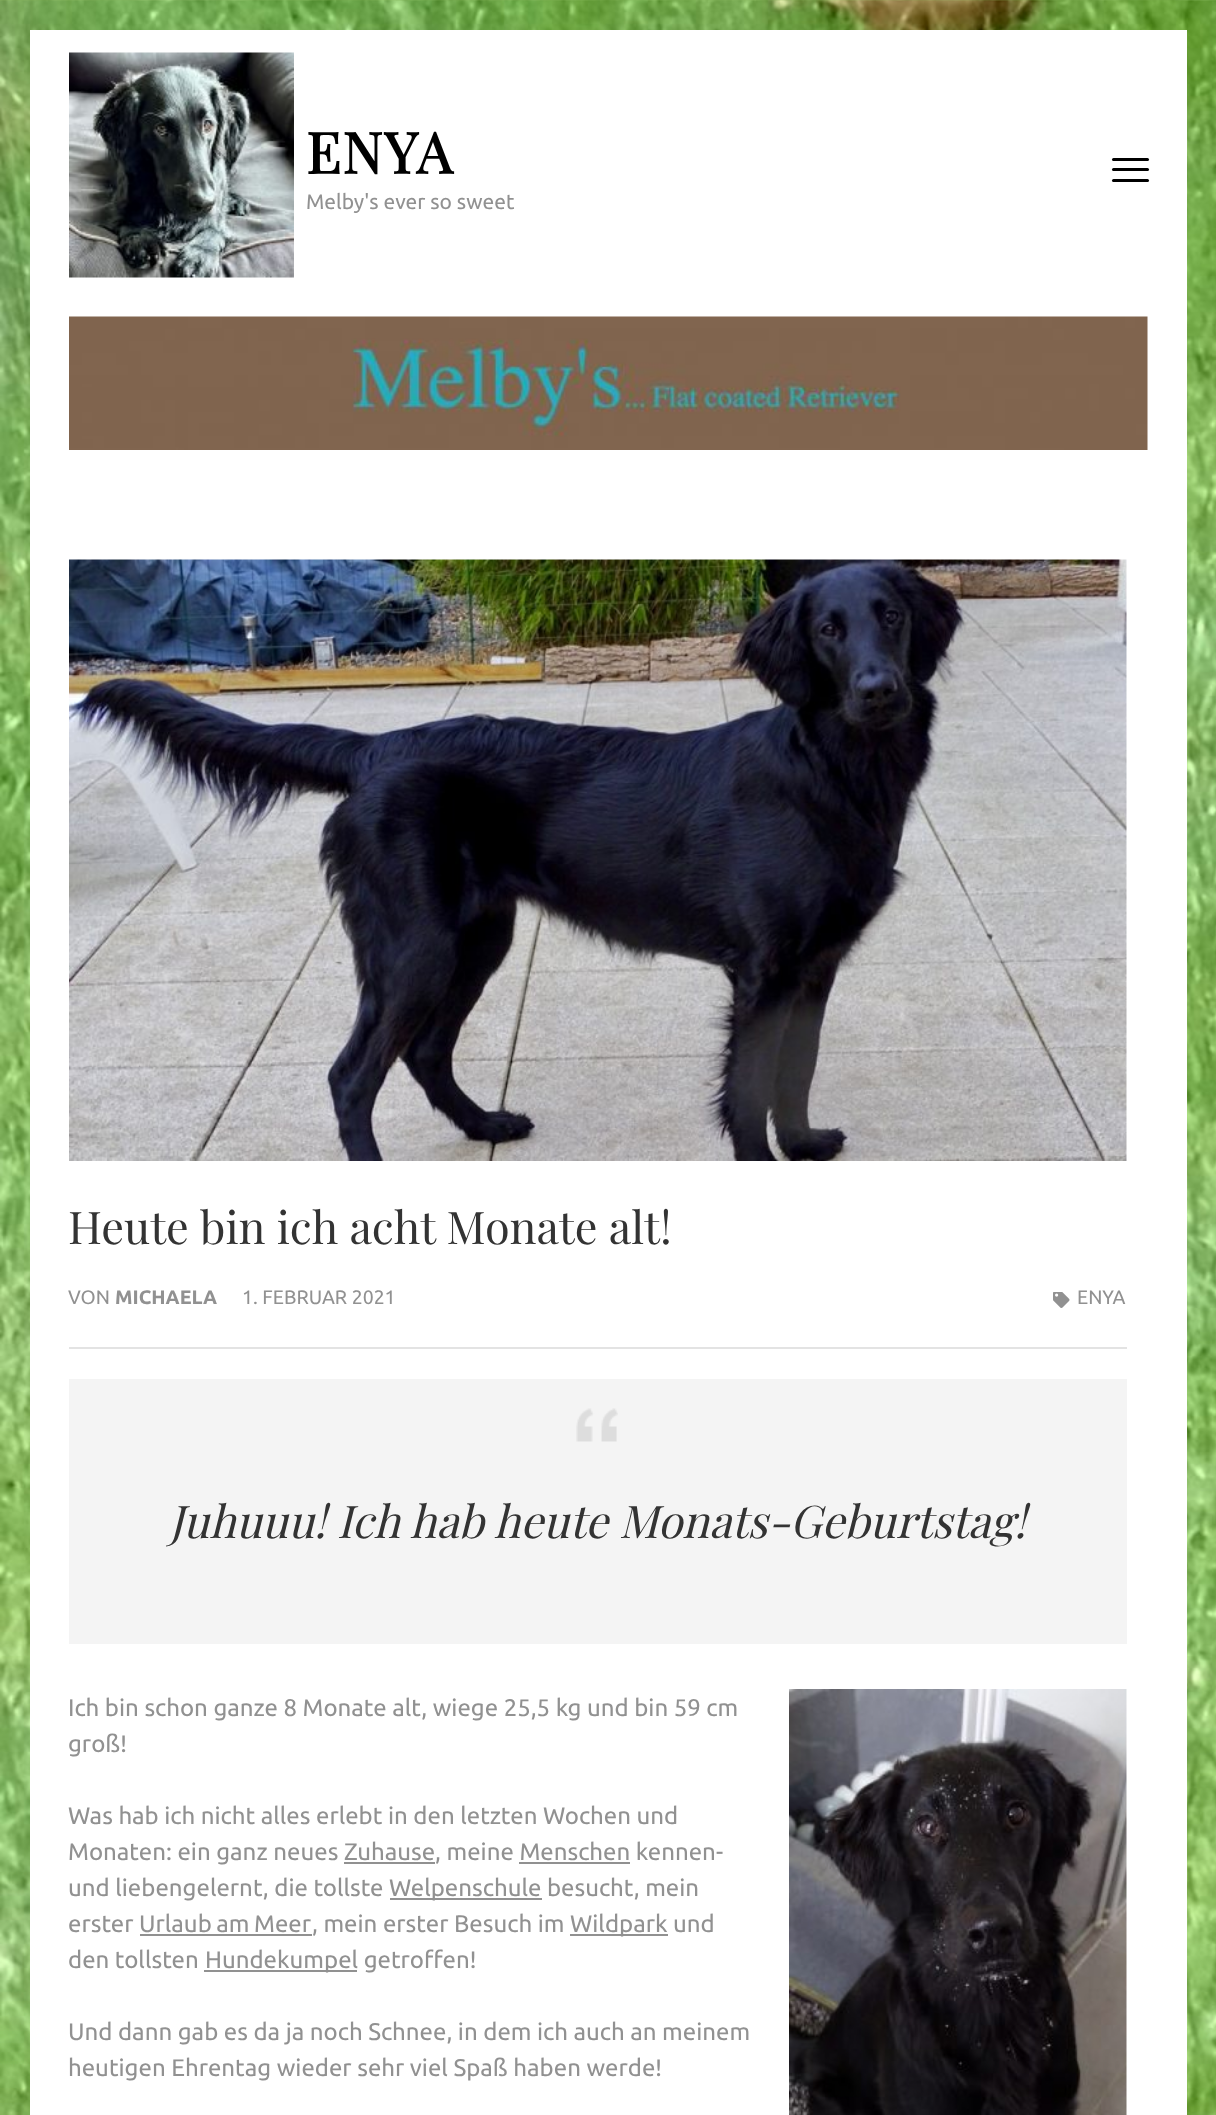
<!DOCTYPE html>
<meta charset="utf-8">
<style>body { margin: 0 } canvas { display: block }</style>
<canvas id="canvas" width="1216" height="2115"></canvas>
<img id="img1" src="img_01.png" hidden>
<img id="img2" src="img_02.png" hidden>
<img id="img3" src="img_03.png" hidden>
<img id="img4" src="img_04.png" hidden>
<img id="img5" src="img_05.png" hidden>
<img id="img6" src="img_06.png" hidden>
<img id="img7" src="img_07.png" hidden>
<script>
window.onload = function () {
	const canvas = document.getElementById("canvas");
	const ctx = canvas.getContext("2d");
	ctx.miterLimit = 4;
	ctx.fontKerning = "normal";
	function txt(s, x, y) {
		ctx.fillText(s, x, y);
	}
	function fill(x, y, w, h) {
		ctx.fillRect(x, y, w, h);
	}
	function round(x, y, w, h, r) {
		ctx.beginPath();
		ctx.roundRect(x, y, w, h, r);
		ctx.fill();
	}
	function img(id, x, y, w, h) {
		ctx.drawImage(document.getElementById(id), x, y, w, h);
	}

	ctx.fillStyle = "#FFFFFF";
	fill(0, 0, 1216, 2115);
	img("img1", 0, 0, 1216, 2115);
	fill(30, 30, 1157, 2085);
	img("img2", 69, 52, 225, 226);
	ctx.fillStyle = "#000000";
	round(1112, 158, 37, 3, 1.5);
	round(1112, 168, 37, 3, 1.5);
	round(1112, 179, 37, 3, 1.5);
	img("img3", 69, 316, 1079, 134);
	img("img4", 69, 559, 1058, 602);
	ctx.fillStyle = "#E3E3E3";
	fill(69, 1347, 1058, 2);
	img("img5", 1053, 1292, 17, 16);
	ctx.fillStyle = "#F4F4F4";
	fill(69, 1379, 1058, 265);
	img("img6", 576, 1408, 42, 34);
	img("img7", 789, 1689, 338, 426);
	ctx.fillStyle = "#919191";
	fill(344, 1862, 91, 2);
	fill(519, 1862, 111, 2);
	fill(390, 1898, 152, 2);
	fill(140, 1934, 172, 2);
	fill(570, 1934, 98, 2);
	fill(204, 1970, 153, 2);
	ctx.letterSpacing = "1.5px";
	ctx.font = "bold 57px Playfair Display";
	ctx.fillStyle = "#000000";
	txt("ENYA", 306, 174);
	ctx.letterSpacing = "0px";
	ctx.font = "21px Ubuntu";
	ctx.fillStyle = "#919191";
	txt("Melby's ever so sweet", 306, 209);
	ctx.font = "45px Playfair Display";
	ctx.fillStyle = "#333333";
	txt("Heute bin ich acht Monate alt!", 68, 1244);
	ctx.font = "19.5px Ubuntu";
	ctx.fillStyle = "#919191";
	txt("VON", 68, 1304);
	ctx.font = "bold 19.5px Ubuntu";
	txt("MICHAELA", 115, 1304);
	ctx.font = "19.5px Ubuntu";
	txt("1. FEBRUAR 2021", 242, 1304);
	txt("ENYA", 1077, 1304);
	ctx.font = "italic 45px Playfair Display";
	ctx.fillStyle = "#333333";
	txt("Juhuuu! Ich hab heute Monats-Geburtstag!", 169, 1538);
	ctx.font = "24px Ubuntu";
	ctx.fillStyle = "#919191";
	txt("Ich bin schon ganze 8 Monate alt, wiege 25,5 kg und bin 59 cm", 68, 1716);
	txt("groß!", 68, 1752);
	txt("Was hab ich nicht alles erlebt in den letzten Wochen und", 68, 1824);
	txt("Monaten: ein ganz neues Zuhause, meine Menschen kennen-", 68, 1860);
	txt("und liebengelernt, die tollste", 68, 1896);
	txt("Welpenschule besucht, mein", 389, 1896);
	txt("erster", 68, 1932);
	ctx.wordSpacing = "-1px";
	txt("Urlaub am Meer", 139, 1932);
	ctx.wordSpacing = "0px";
	txt(", mein erster Besuch im", 312, 1932);
	txt("Wildpark und", 570, 1932);
	txt("den tollsten", 68, 1968);
	txt("Hundekumpel getroffen!", 205, 1968);
	txt("Und dann gab es da ja noch Schnee, in dem ich auch an meinem", 68, 2040);
	txt("heutigen Ehrentag wieder sehr viel Spaß haben werde!", 68, 2076);
};
</script>
